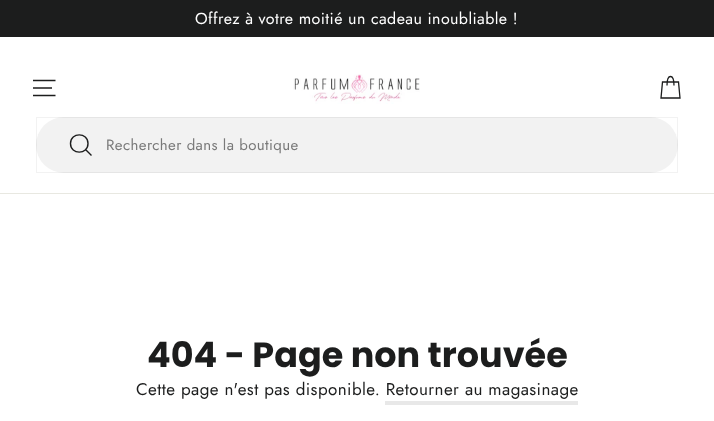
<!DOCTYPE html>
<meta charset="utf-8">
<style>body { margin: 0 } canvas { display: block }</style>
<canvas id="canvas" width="714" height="421"></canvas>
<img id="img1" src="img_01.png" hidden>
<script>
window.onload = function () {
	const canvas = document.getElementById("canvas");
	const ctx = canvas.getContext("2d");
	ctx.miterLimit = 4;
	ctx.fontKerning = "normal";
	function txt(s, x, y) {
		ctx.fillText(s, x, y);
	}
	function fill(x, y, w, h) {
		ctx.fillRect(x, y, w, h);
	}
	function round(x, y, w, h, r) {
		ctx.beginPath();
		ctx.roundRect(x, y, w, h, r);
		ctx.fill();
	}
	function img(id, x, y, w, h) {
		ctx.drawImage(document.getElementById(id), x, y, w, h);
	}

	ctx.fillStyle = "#FFFFFF";
	fill(0, 0, 714, 421);
	ctx.fillStyle = "#1C1D1D";
	fill(0, 0, 714, 37);
	ctx.fillStyle = "#E8E8E1";
	fill(0, 193, 714, 1);
	ctx.beginPath();
	ctx.moveTo(33, 80.5);
	ctx.lineTo(55.5, 80.5);
	ctx.moveTo(33, 88);
	ctx.lineTo(52, 88);
	ctx.moveTo(33, 95.5);
	ctx.lineTo(55.5, 95.5);
	ctx.strokeStyle = "#1C1D1D";
	ctx.lineWidth = 1.3;
	ctx.stroke();
	img("img1", 293, 74, 127, 30);
	ctx.beginPath();
	ctx.moveTo(667, 85.5);
	ctx.bezierCurveTo(667, 73.5, 674, 73.5, 674, 85.5);
	ctx.moveTo(662.5, 82);
	ctx.lineTo(678.5, 82);
	ctx.lineTo(680, 98);
	ctx.lineTo(661, 98);
	ctx.closePath();
	ctx.stroke();
	ctx.fillStyle = "#F2F2F2";
	round(36, 117, 642, 56, 28);
	ctx.strokeStyle = "rgba(0, 0, 0, 0.05)";
	ctx.lineWidth = 1;
	ctx.strokeRect(36.5, 117.5, 641, 55);
	ctx.beginPath();
	ctx.moveTo(88, 143.5);
	ctx.bezierCurveTo(88, 155, 70.5, 155, 70.5, 143.5);
	ctx.bezierCurveTo(70.5, 132, 88, 132, 88, 143.5);
	ctx.closePath();
	ctx.moveTo(91.5, 155.5);
	ctx.lineTo(85.5, 149.5);
	ctx.strokeStyle = "#1C1D1D";
	ctx.lineWidth = 1.4;
	ctx.stroke();
	ctx.fillStyle = "#E8E8E8";
	fill(385, 401, 193, 4);
	ctx.letterSpacing = "0.42px";
	ctx.font = "16px Jost";
	ctx.fillStyle = "#FFFFFF";
	txt("Offrez à votre moitié un cadeau inoubliable !", 195, 24);
	ctx.letterSpacing = "0.4px";
	ctx.font = "15px Jost";
	ctx.fillStyle = "#797979";
	txt("Rechercher dans la boutique", 106, 150);
	ctx.letterSpacing = "0px";
	ctx.font = "bold 35px Poppins";
	ctx.fillStyle = "#1C1D1D";
	txt("404 - Page non trouvée", 147, 367);
	ctx.letterSpacing = "0.42px";
	ctx.font = "17px Jost";
	txt("Cette page n'est pas disponible. Retourner au magasinage", 136, 395);
};
</script>
